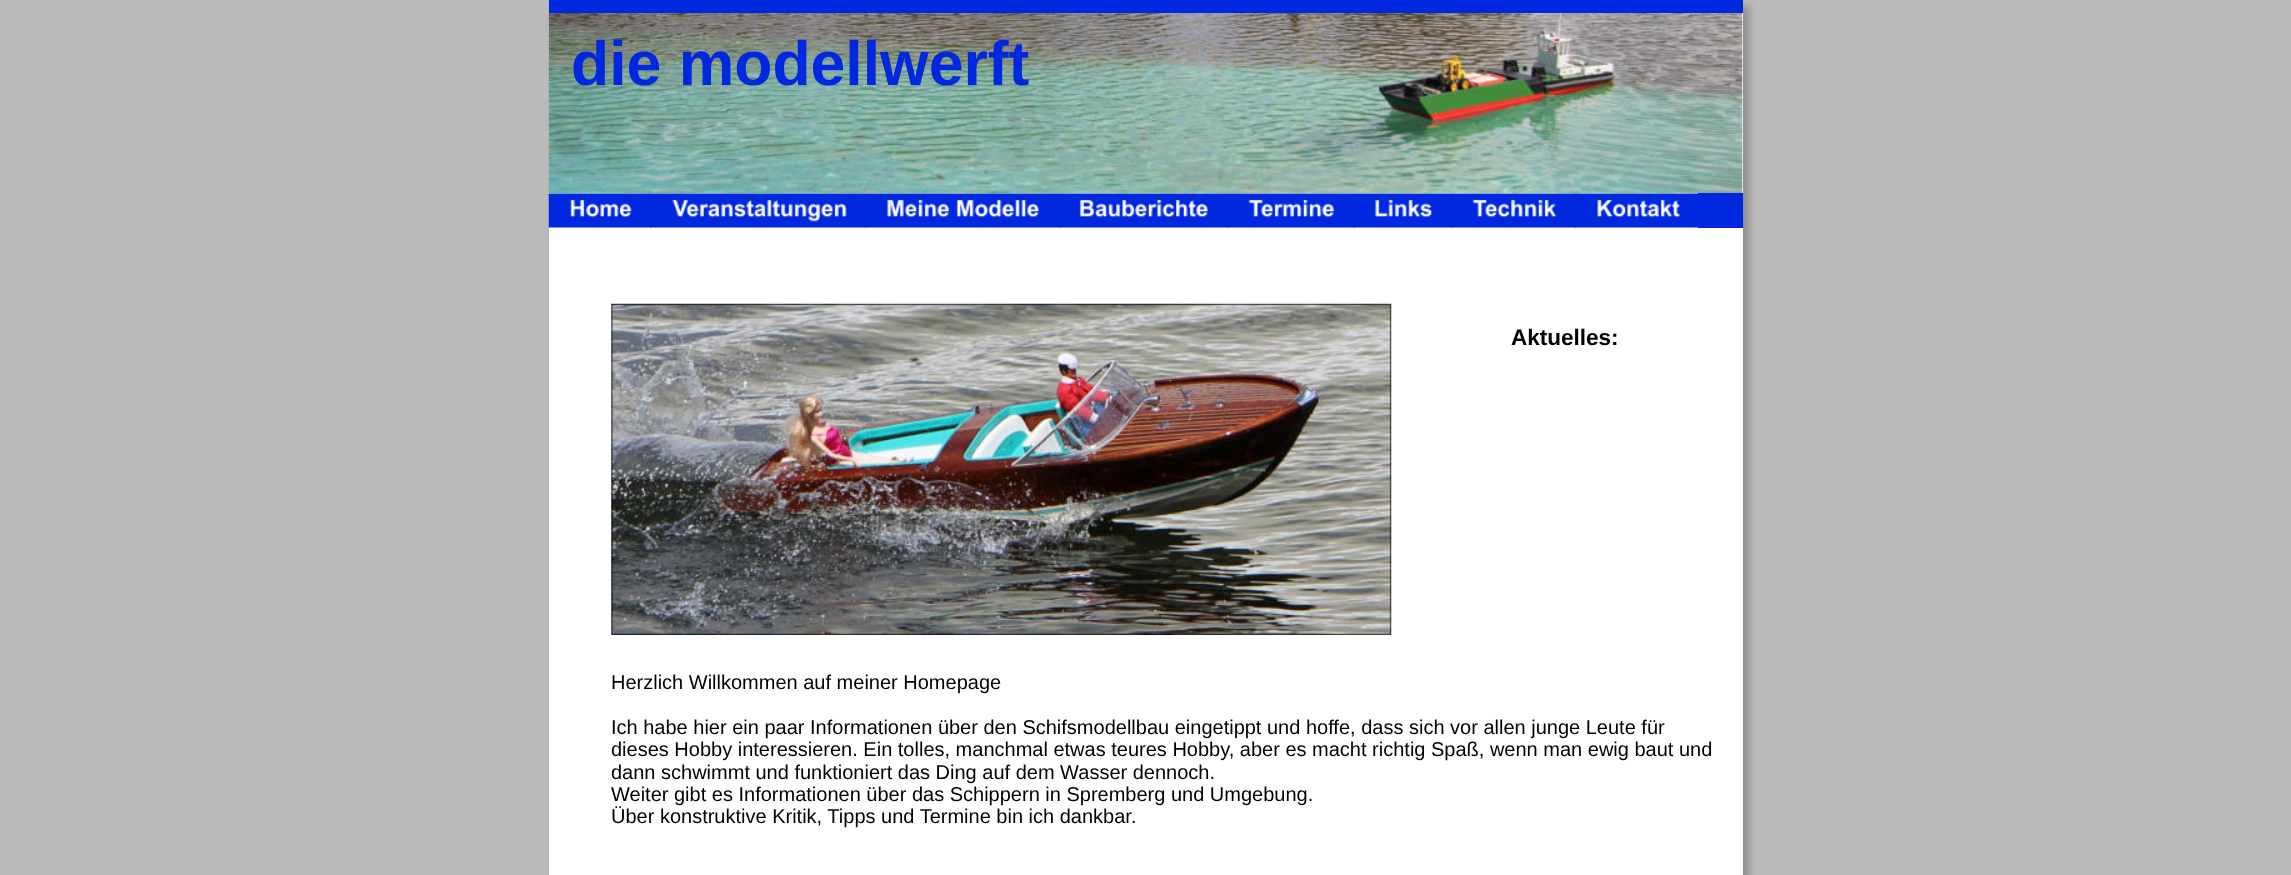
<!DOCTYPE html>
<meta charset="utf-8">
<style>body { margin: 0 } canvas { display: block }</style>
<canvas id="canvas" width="2291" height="875"></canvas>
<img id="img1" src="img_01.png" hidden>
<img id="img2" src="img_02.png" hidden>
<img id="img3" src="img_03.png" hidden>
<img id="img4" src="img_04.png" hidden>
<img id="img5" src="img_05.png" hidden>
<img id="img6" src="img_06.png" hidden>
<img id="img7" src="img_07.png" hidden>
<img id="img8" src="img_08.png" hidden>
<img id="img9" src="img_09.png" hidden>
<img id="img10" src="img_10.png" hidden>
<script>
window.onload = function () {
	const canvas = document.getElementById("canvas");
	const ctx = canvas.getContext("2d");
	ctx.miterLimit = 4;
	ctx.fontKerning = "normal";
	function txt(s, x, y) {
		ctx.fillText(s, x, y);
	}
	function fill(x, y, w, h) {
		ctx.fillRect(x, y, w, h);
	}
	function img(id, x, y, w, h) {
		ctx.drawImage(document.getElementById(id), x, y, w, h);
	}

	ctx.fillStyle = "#BBBBBB";
	fill(0, 0, 2291, 875);
	ctx.fillStyle = "rgba(0, 0, 0, 0.25)";
	ctx.filter = "blur(4px)";
	ctx.beginPath();
	ctx.rect(555, 6, 1194, 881);
	ctx.fill();
	ctx.filter = "none";
	ctx.fillStyle = "#FFFFFF";
	fill(549, 13, 1194, 862);
	img("img1", 548, 11, 1195, 183);
	ctx.fillStyle = "#0028DF";
	fill(549, 0, 1194, 13);
	img("img2", 611, 303, 781, 332);
	img("img3", 548, 193, 104, 35);
	img("img4", 650, 193, 217, 35);
	img("img5", 865, 193, 195, 35);
	img("img6", 1058, 193, 171, 35);
	img("img7", 1227, 193, 128, 35);
	img("img8", 1353, 193, 100, 35);
	img("img9", 1451, 193, 126, 35);
	img("img10", 1575, 193, 123, 35);
	fill(1698, 193, 45, 35);
	ctx.font = "bold 62.5px Liberation Sans";
	txt("die modellwerft", 571, 85);
	ctx.font = "bold 22.5px Liberation Sans";
	ctx.fillStyle = "#000000";
	txt("Aktuelles:", 1511, 345);
	ctx.font = "20px Liberation Sans";
	txt("Herzlich Willkommen auf meiner Homepage", 611, 689);
	txt("Ich habe hier ein paar Informationen über den Schifsmodellbau eingetippt und hoffe, dass sich vor allen junge Leute für", 611, 734);
	txt("dieses Hobby interessieren. Ein tolles, manchmal etwas teures Hobby, aber es macht richtig Spaß, wenn man ewig baut und", 611, 756);
	txt("dann schwimmt und funktioniert das Ding auf dem Wasser dennoch.", 611, 779);
	txt("Weiter gibt es Informationen über das Schippern in Spremberg und Umgebung.", 611, 801);
	txt("Über konstruktive Kritik, Tipps und Termine bin ich dankbar.", 611, 823);
};
</script>
